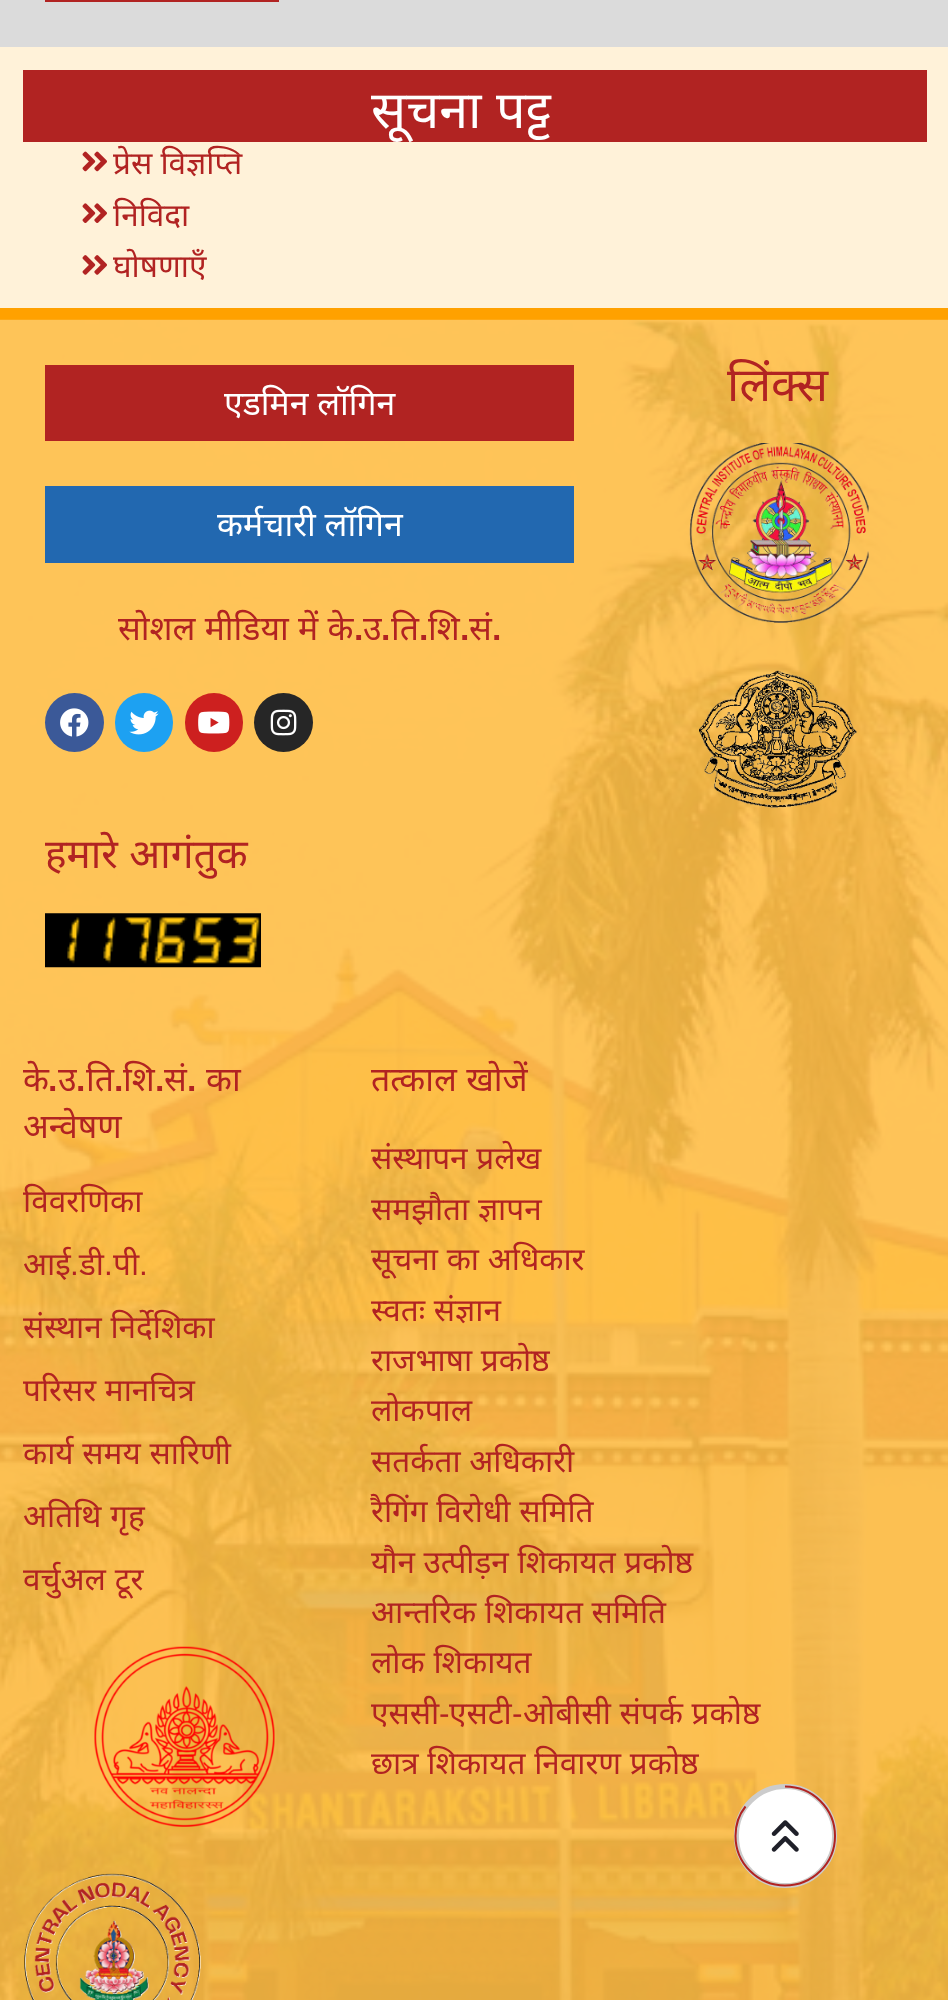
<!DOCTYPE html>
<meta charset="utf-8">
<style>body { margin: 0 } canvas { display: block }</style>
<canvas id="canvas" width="948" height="2000"></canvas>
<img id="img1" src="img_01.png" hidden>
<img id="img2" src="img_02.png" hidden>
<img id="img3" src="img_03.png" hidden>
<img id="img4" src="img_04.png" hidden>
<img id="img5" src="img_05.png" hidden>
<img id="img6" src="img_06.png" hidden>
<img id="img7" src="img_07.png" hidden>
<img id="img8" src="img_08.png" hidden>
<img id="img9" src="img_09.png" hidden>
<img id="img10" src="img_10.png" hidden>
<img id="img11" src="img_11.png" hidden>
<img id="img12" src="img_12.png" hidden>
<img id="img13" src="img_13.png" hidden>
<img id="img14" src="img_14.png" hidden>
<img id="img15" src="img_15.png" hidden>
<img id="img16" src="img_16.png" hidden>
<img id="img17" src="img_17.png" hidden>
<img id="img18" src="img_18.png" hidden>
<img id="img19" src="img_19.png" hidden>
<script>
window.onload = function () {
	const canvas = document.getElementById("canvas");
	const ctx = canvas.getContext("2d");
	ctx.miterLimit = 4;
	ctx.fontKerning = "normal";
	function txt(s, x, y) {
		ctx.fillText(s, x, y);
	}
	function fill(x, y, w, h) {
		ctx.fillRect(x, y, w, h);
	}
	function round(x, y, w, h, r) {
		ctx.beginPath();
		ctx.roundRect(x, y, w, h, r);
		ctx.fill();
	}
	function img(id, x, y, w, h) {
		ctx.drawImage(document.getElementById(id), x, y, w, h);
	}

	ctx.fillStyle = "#FFF2D9";
	fill(0, 0, 948, 2000);
	ctx.fillStyle = "#DBDBDB";
	fill(0, 0, 948, 47);
	ctx.fillStyle = "#B12322";
	fill(45, 0, 234, 2);
	fill(23, 70, 904, 72);
	img("img1", 82, 151, 25, 21);
	img("img2", 82, 203, 25, 20);
	img("img3", 82, 255, 25, 20);
	ctx.fillStyle = "#FFBE46";
	fill(0, 320, 948, 1680);
	ctx.fillStyle = "#FFA100";
	fill(0, 308, 948, 12);
	img("img4", 0, 319, 948, 1681);
	ctx.fillStyle = "#B12322";
	fill(45, 365, 529, 76);
	ctx.fillStyle = "#2268B0";
	fill(45, 486, 529, 77);
	ctx.fillStyle = "#3B5998";
	ctx.beginPath();
	ctx.arc(74.5, 722.5, 29.5, 0, Math.PI * 2);
	ctx.fill();
	img("img5", 60, 708, 29, 29);
	ctx.fillStyle = "#1DA1F2";
	round(115, 693, 58, 59, 29);
	img("img6", 129, 710, 30, 25);
	ctx.fillStyle = "#CD201F";
	round(185, 693, 58, 59, 29);
	img("img7", 198, 711, 32, 23);
	ctx.fillStyle = "#262626";
	ctx.beginPath();
	ctx.arc(283.5, 722.5, 29.5, 0, Math.PI * 2);
	ctx.fill();
	img("img8", 270, 709, 27, 27);
	img("img9", 45, 913, 36, 55);
	img("img10", 81, 913, 36, 55);
	img("img11", 117, 913, 36, 55);
	img("img12", 153, 913, 36, 55);
	img("img13", 189, 913, 36, 55);
	img("img14", 225, 913, 36, 55);
	img("img15", 689, 443, 180, 180);
	img("img16", 698, 670, 159, 138);
	img("img17", 94, 1646, 181, 181);
	img("img18", 24, 1873, 177, 127);
	ctx.fillStyle = "#FFFFFF";
	ctx.beginPath();
	ctx.roundRect(736.5, 1786.5, 98, 99, 49);
	ctx.fill();
	ctx.strokeStyle = "#CCCCCC";
	ctx.lineWidth = 5;
	ctx.stroke();
	ctx.beginPath();
	ctx.moveTo(785, 1786.5);
	ctx.bezierCurveTo(812.5, 1786.5, 835, 1808.5, 835, 1836);
	ctx.bezierCurveTo(835, 1863.5, 812.5, 1885.5, 785, 1885.5);
	ctx.bezierCurveTo(758, 1885.5, 735.5, 1863.5, 735.5, 1836);
	ctx.bezierCurveTo(735.5, 1825, 739, 1814.5, 745.5, 1806.5);
	ctx.strokeStyle = "#B12322";
	ctx.lineWidth = 2;
	ctx.stroke();
	img("img19", 771, 1820, 28, 32);
	ctx.wordSpacing = "1px";
	ctx.font = "52px Noto Sans";
	txt("सूचना पट्ट", 371, 128);
	ctx.wordSpacing = "0px";
	ctx.font = "31.5px Noto Sans";
	ctx.fillStyle = "#B12322";
	txt("प्रेस विज्ञप्ति", 113, 174);
	txt("निविदा", 113, 226);
	txt("घोषणाएँ", 113, 277);
	ctx.font = "33.75px Noto Sans";
	ctx.fillStyle = "#FFFFFF";
	txt("एडमिन लॉगिन", 224, 415);
	txt("कर्मचारी लॉगिन", 217, 536);
	ctx.wordSpacing = "0.5px";
	ctx.fillStyle = "#B12322";
	txt("सोशल मीडिया में के", 118, 640);
	ctx.wordSpacing = "0px";
	ctx.font = "bold 33.75px Liberation Sans";
	txt(".", 354, 640);
	ctx.font = "33.75px Noto Sans";
	txt("उ", 363, 640);
	ctx.font = "bold 33.75px Liberation Sans";
	txt(".", 381, 640);
	ctx.font = "33.75px Noto Sans";
	txt("ति", 391, 640);
	ctx.font = "bold 33.75px Liberation Sans";
	txt(".", 419, 640);
	ctx.font = "33.75px Noto Sans";
	txt("शि", 428, 640);
	ctx.font = "bold 33.75px Liberation Sans";
	txt(".", 460, 640);
	ctx.font = "33.75px Noto Sans";
	txt("सं", 469, 640);
	ctx.font = "bold 33.75px Liberation Sans";
	txt(".", 492, 640);
	ctx.wordSpacing = "1px";
	ctx.font = "40.5px Noto Sans";
	txt("हमारे आगंतुक", 45, 868);
	ctx.wordSpacing = "0px";
	ctx.font = "47px Noto Sans";
	txt("लिंक्स", 727, 401);
	ctx.save();
	ctx.beginPath();
	ctx.rect(23, 1037, 326, 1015);
	ctx.clip();
	ctx.font = "33.75px Noto Sans";
	txt("के", 23, 1091);
	ctx.restore();
	ctx.font = "bold 33.75px Liberation Sans";
	txt(".", 48, 1091);
	ctx.font = "33.75px Noto Sans";
	txt("उ", 58, 1091);
	ctx.font = "bold 33.75px Liberation Sans";
	txt(".", 76, 1091);
	ctx.font = "33.75px Noto Sans";
	txt("ति", 86, 1091);
	ctx.font = "bold 33.75px Liberation Sans";
	txt(".", 114, 1091);
	ctx.font = "33.75px Noto Sans";
	txt("शि", 123, 1091);
	txt("का", 206, 1091);
	ctx.font = "bold 33.75px Liberation Sans";
	txt(".", 155, 1091);
	ctx.font = "33.75px Noto Sans";
	txt("सं", 164, 1091);
	ctx.font = "bold 33.75px Liberation Sans";
	txt(".", 187, 1091);
	ctx.font = "33.75px Noto Sans";
	txt("अन्वेषण", 23, 1138);
	ctx.save();
	ctx.beginPath();
	ctx.rect(23, 1037, 326, 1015);
	ctx.clip();
	ctx.font = "31.5px Noto Sans";
	txt("विवरणिका", 23, 1212);
	ctx.restore();
	ctx.font = "31.5px Noto Sans";
	txt("आई", 23, 1275);
	ctx.font = "31.5px Liberation Sans";
	txt(".", 70, 1275);
	ctx.font = "31.5px Noto Sans";
	txt("डी", 79, 1275);
	ctx.font = "31.5px Liberation Sans";
	txt(".", 104, 1275);
	ctx.font = "31.5px Noto Sans";
	txt("पी", 113, 1275);
	ctx.font = "31.5px Liberation Sans";
	txt(".", 139, 1275);
	ctx.save();
	ctx.beginPath();
	ctx.rect(23, 1037, 326, 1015);
	ctx.clip();
	ctx.wordSpacing = "0.5px";
	ctx.font = "31.5px Noto Sans";
	txt("संस्थान निर्देशिका", 23, 1338);
	txt("परिसर मानचित्र", 23, 1401);
	txt("कार्य समय सारिणी", 23, 1464);
	ctx.restore();
	ctx.wordSpacing = "0.5px";
	ctx.font = "31.5px Noto Sans";
	txt("अतिथि गृह", 23, 1527);
	ctx.save();
	ctx.beginPath();
	ctx.rect(23, 1037, 326, 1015);
	ctx.clip();
	txt("वर्चुअल टूर", 23, 1590);
	ctx.restore();
	ctx.font = "33.75px Noto Sans";
	txt("तत्काल खोजें", 371, 1091);
	ctx.font = "31.5px Noto Sans";
	txt("संस्थापन प्रलेख", 371, 1169);
	txt("समझौता ज्ञापन", 371, 1220);
	txt("सूचना का अधिकार", 371, 1270);
	txt("स्वतः संज्ञान", 371, 1321);
	txt("राजभाषा प्रकोष्ठ", 371, 1371);
	ctx.wordSpacing = "0px";
	txt("लोकपाल", 371, 1421);
	ctx.wordSpacing = "0.5px";
	txt("सतर्कता अधिकारी", 371, 1472);
	txt("रैगिंग विरोधी समिति", 371, 1522);
	txt("यौन उत्पीड़न शिकायत प्रकोष्ठ", 371, 1573);
	txt("आन्तरिक शिकायत समिति", 371, 1623);
	txt("लोक शिकायत", 371, 1673);
	ctx.wordSpacing = "0px";
	txt("एससी", 371, 1724);
	ctx.font = "31.5px Liberation Sans";
	txt("-", 439, 1724);
	ctx.font = "31.5px Noto Sans";
	txt("एसटी", 449, 1724);
	ctx.font = "31.5px Liberation Sans";
	txt("-", 512, 1724);
	ctx.wordSpacing = "0.5px";
	ctx.font = "31.5px Noto Sans";
	txt("ओबीसी संपर्क प्रकोष्ठ", 523, 1724);
	txt("छात्र शिकायत निवारण प्रकोष्ठ", 371, 1774);
};
</script>
